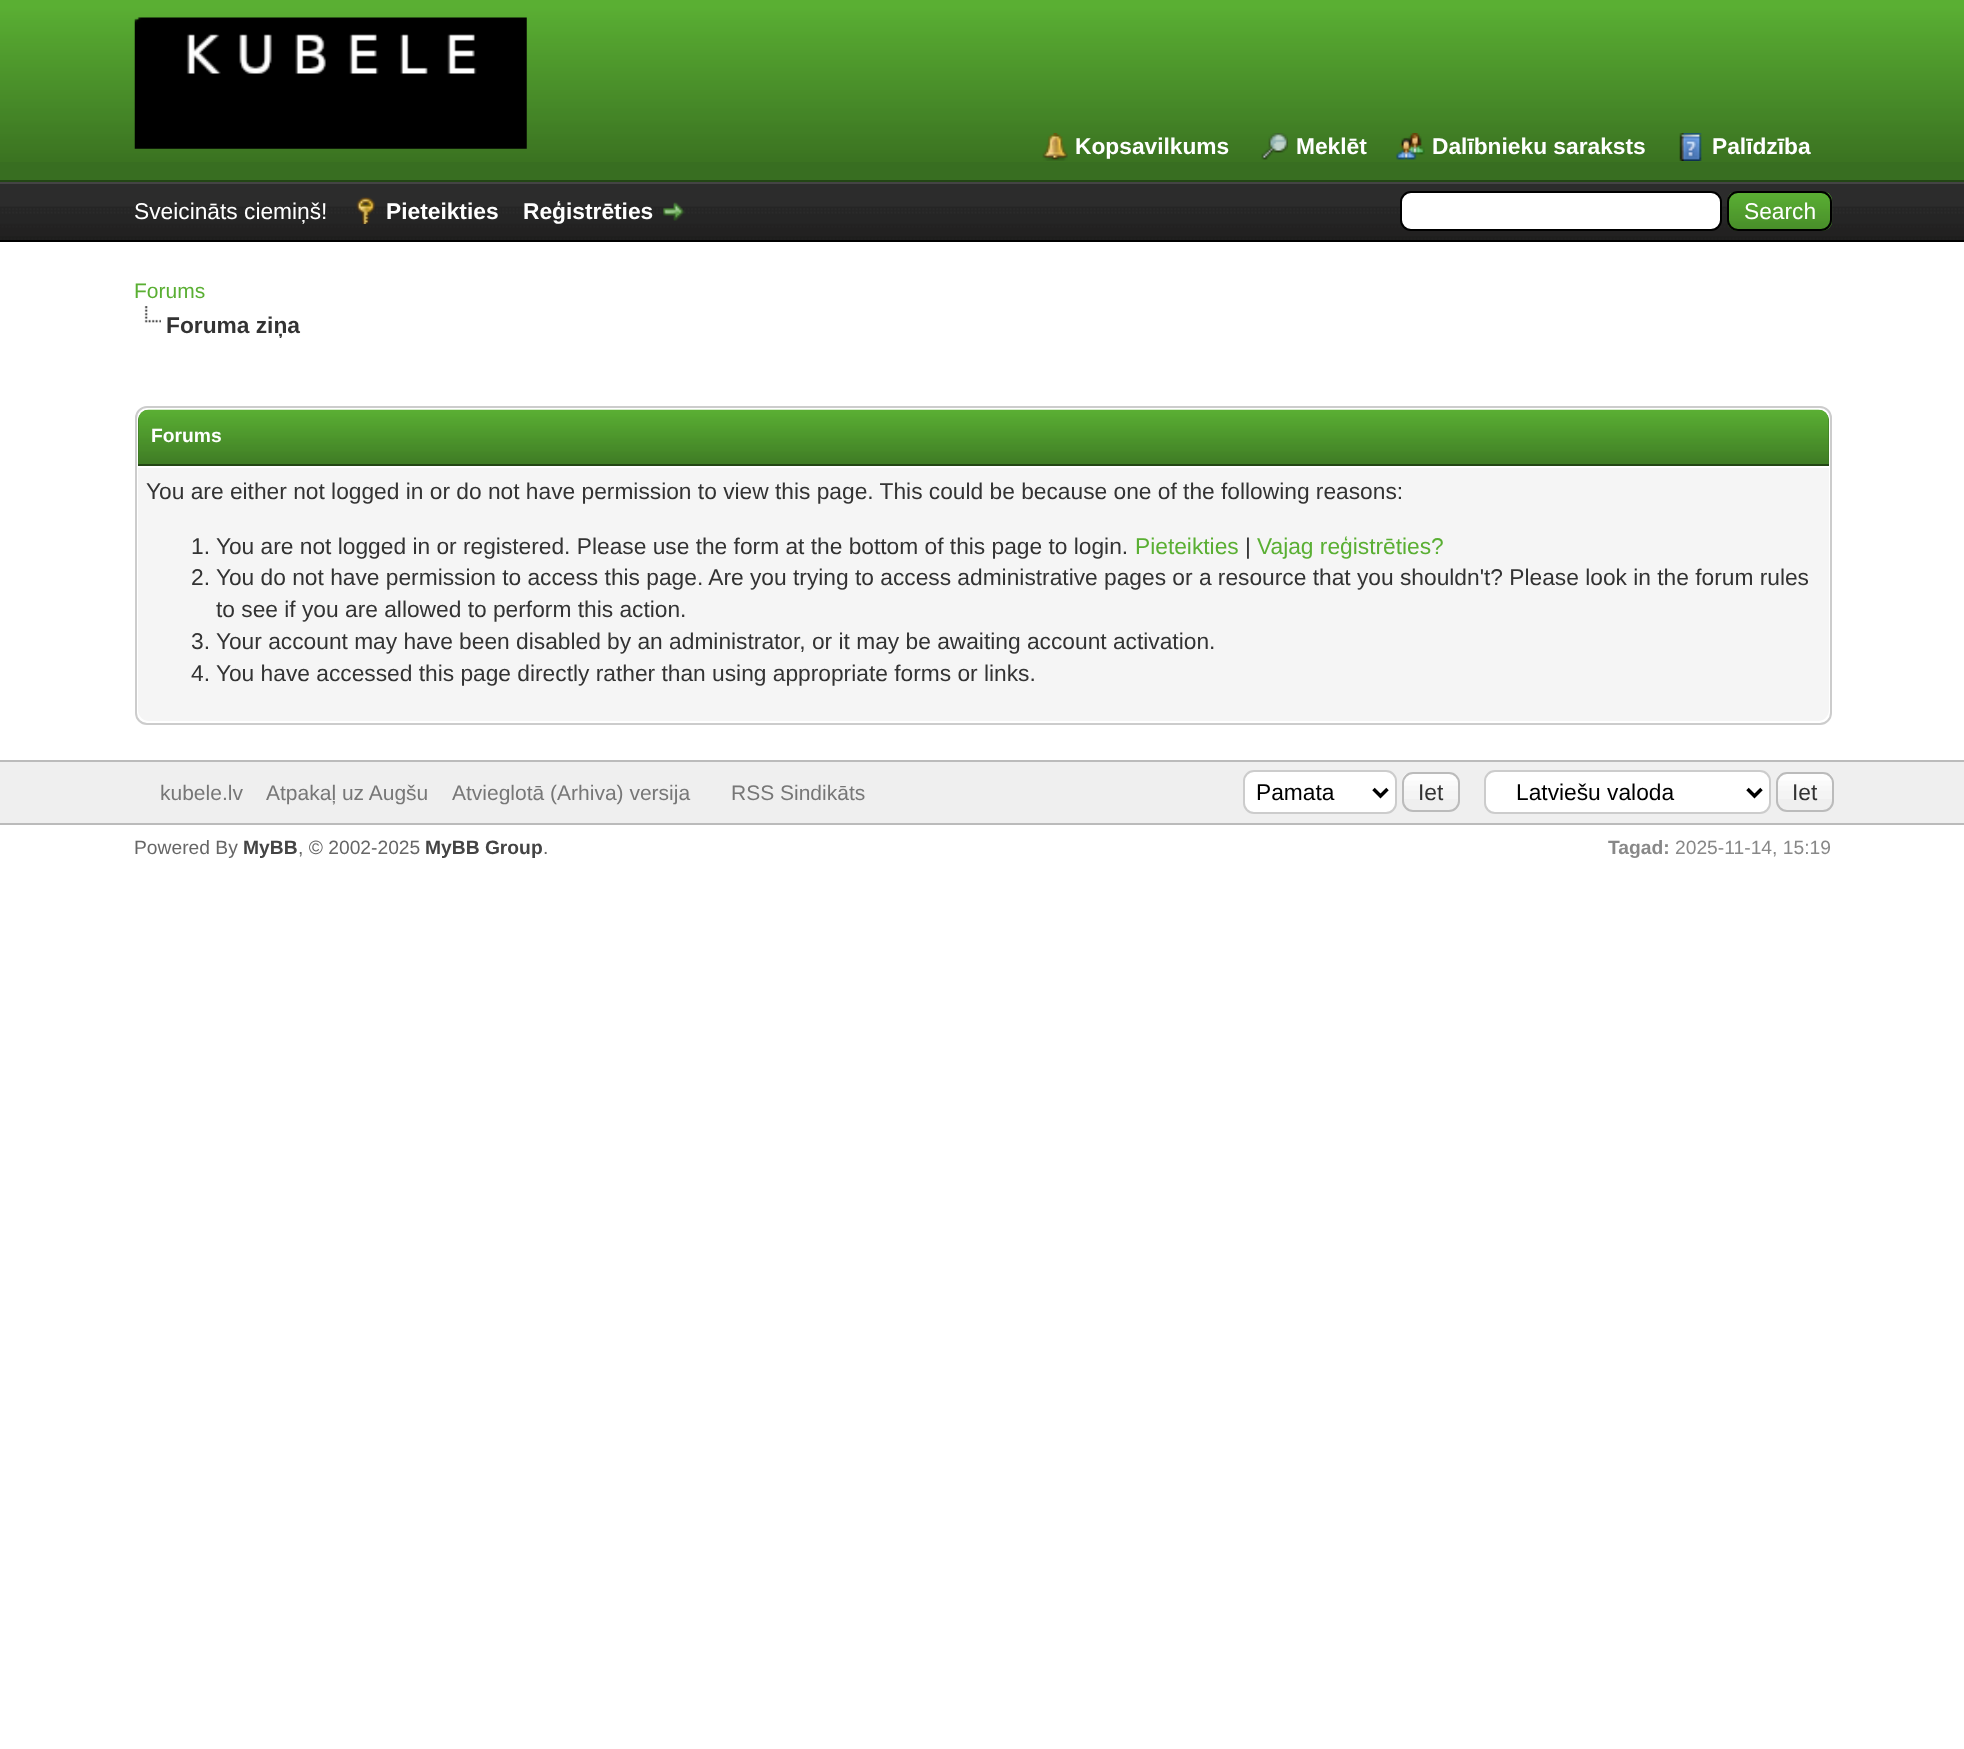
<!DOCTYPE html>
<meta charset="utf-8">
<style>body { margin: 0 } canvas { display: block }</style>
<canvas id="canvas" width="1964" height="1749"></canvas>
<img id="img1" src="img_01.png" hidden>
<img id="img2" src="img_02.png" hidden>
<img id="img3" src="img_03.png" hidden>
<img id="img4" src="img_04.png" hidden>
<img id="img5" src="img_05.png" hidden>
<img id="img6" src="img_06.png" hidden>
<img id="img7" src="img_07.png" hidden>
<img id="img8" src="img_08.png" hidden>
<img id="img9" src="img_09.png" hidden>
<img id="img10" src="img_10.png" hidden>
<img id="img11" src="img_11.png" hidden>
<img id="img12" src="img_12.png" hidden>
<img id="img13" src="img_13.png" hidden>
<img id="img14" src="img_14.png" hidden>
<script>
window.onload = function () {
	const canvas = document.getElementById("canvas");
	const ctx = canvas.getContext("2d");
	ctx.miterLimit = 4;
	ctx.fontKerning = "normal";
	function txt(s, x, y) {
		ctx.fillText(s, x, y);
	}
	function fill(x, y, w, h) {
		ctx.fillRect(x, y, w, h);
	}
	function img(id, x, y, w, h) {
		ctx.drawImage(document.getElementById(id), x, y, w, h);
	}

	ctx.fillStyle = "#FFFFFF";
	fill(0, 0, 1964, 1749);
	ctx.fillStyle = "#386E21";
	fill(0, 162, 1964, 18);
	img("img1", 0, 0, 1964, 162);
	ctx.fillStyle = "#234615";
	fill(0, 180, 1964, 2);
	img("img2", 134, 17, 393, 132);
	img("img3", 1042, 133, 26, 28);
	img("img4", 1261, 133, 27, 27);
	img("img5", 1396, 133, 29, 27);
	img("img6", 1679, 133, 23, 28);
	img("img7", 0, 184, 1964, 56);
	ctx.fillStyle = "#444444";
	fill(0, 182, 1964, 2);
	ctx.fillStyle = "#000000";
	fill(0, 240, 1964, 2);
	img("img8", 356, 197, 19, 27);
	img("img9", 662, 202, 23, 19);
	ctx.fillStyle = "#FFFFFF";
	ctx.beginPath();
	ctx.roundRect(1401, 192, 320, 38, 10);
	ctx.fill();
	ctx.strokeStyle = "#000000";
	ctx.lineWidth = 2;
	ctx.stroke();
	img("img10", 1727, 192, 106, 39);
	ctx.beginPath();
	ctx.roundRect(1728, 192, 103, 38, 10);
	ctx.stroke();
	img("img11", 144, 306, 17, 17);
	ctx.beginPath();
	ctx.roundRect(136, 407, 1695, 317, 11);
	ctx.strokeStyle = "#CCCCCC";
	ctx.stroke();
	ctx.fillStyle = "#386E21";
	ctx.beginPath();
	ctx.roundRect(138, 410, 1691, 56, [11, 11, 0, 0]);
	ctx.fill();
	img("img12", 138, 409, 1691, 55);
	ctx.fillStyle = "#234615";
	fill(138, 464, 1691, 2);
	ctx.fillStyle = "#F5F5F5";
	ctx.beginPath();
	ctx.roundRect(138, 466, 1691, 255, [0, 0, 11, 11]);
	ctx.fill();
	ctx.fillStyle = "#FFFFFF";
	fill(138, 466, 1691, 2);
	ctx.fillStyle = "#EFEFEF";
	fill(0, 762, 1964, 61);
	ctx.fillStyle = "#BBBBBB";
	fill(0, 760, 1964, 2);
	fill(0, 823, 1964, 2);
	ctx.fillStyle = "#FFFFFF";
	ctx.beginPath();
	ctx.roundRect(1244, 771, 152, 42, 10);
	ctx.fill();
	ctx.stroke();
	ctx.beginPath();
	ctx.moveTo(1373.5, 789);
	ctx.lineTo(1380.5, 796);
	ctx.lineTo(1387.5, 789);
	ctx.strokeStyle = "#000000";
	ctx.lineWidth = 3.5;
	ctx.stroke();
	img("img13", 1402, 773, 57, 26);
	ctx.beginPath();
	ctx.roundRect(1403, 773, 56, 38, 10);
	ctx.strokeStyle = "#BBBBBB";
	ctx.lineWidth = 2;
	ctx.stroke();
	ctx.beginPath();
	ctx.roundRect(1485, 771, 285, 42, 10);
	ctx.fill();
	ctx.strokeStyle = "#CCCCCC";
	ctx.stroke();
	ctx.beginPath();
	ctx.moveTo(1747.5, 789);
	ctx.lineTo(1754.5, 796);
	ctx.lineTo(1761.5, 789);
	ctx.strokeStyle = "#000000";
	ctx.lineWidth = 3.5;
	ctx.stroke();
	img("img14", 1776, 773, 58, 26);
	ctx.beginPath();
	ctx.roundRect(1777, 773, 56, 38, 10);
	ctx.strokeStyle = "#BBBBBB";
	ctx.lineWidth = 2;
	ctx.stroke();
	ctx.font = "bold 22.75px Liberation Sans";
	txt("Kopsavilkums", 1075, 154);
	txt("Meklēt", 1296, 154);
	txt("Dalībnieku saraksts", 1432, 154);
	txt("Palīdzība", 1712, 154);
	ctx.font = "22.75px Liberation Sans";
	txt("Sveicināts ciemiņš!", 134, 219);
	ctx.font = "bold 22.75px Liberation Sans";
	txt("Pieteikties", 386, 219);
	txt("Reģistrēties", 523, 219);
	ctx.font = "22.75px Liberation Sans";
	txt("Search", 1744, 219);
	ctx.font = "21px Liberation Sans";
	ctx.fillStyle = "#5AAF33";
	txt("Forums", 134, 298);
	ctx.font = "bold 22.75px Liberation Sans";
	ctx.fillStyle = "#333333";
	txt("Foruma ziņa", 166, 333);
	ctx.font = "bold 19.25px Liberation Sans";
	ctx.fillStyle = "#FFFFFF";
	txt("Forums", 151, 442);
	ctx.font = "22.75px Liberation Sans";
	ctx.fillStyle = "#333333";
	txt("You are either not logged in or do not have permission to view this page. This could be because one of the following reasons:", 146, 499);
	txt("1. You are not logged in or registered. Please use the form at the bottom of this page to login.", 191, 554);
	ctx.fillStyle = "#5AAF33";
	txt("Pieteikties", 1135, 554);
	ctx.fillStyle = "#333333";
	txt("|", 1245, 554);
	ctx.fillStyle = "#5AAF33";
	txt("Vajag reģistrēties?", 1257, 554);
	ctx.fillStyle = "#333333";
	txt("2. You do not have permission to access this page. Are you trying to access administrative pages or a resource that you shouldn't? Please look in the forum rules", 191, 585);
	txt("to see if you are allowed to perform this action.", 216, 617);
	txt("3. Your account may have been disabled by an administrator, or it may be awaiting account activation.", 191, 649);
	txt("4. You have accessed this page directly rather than using appropriate forms or links.", 191, 681);
	ctx.font = "21px Liberation Sans";
	ctx.fillStyle = "#777777";
	txt("kubele.lv", 160, 800);
	txt("Atpakaļ uz Augšu", 266, 800);
	txt("Atvieglotā (Arhiva) versija", 452, 800);
	txt("RSS Sindikāts", 731, 800);
	ctx.font = "22.75px Liberation Sans";
	ctx.fillStyle = "#000000";
	txt("Pamata", 1256, 800);
	ctx.fillStyle = "#333333";
	txt("Iet", 1418, 800);
	ctx.fillStyle = "#000000";
	txt("Latviešu valoda", 1516, 800);
	ctx.fillStyle = "#333333";
	txt("Iet", 1792, 800);
	ctx.font = "19.25px Liberation Sans";
	ctx.fillStyle = "#666666";
	txt("Powered By", 134, 854);
	ctx.font = "bold 19.25px Liberation Sans";
	ctx.fillStyle = "#444444";
	txt("MyBB", 243, 854);
	ctx.font = "19.25px Liberation Sans";
	ctx.fillStyle = "#666666";
	txt(", © 2002-2025", 298, 854);
	ctx.font = "bold 19.25px Liberation Sans";
	ctx.fillStyle = "#444444";
	txt("MyBB Group", 425, 854);
	ctx.font = "19.25px Liberation Sans";
	ctx.fillStyle = "#666666";
	txt(".", 543, 854);
	ctx.font = "bold 19.25px Liberation Sans";
	ctx.fillStyle = "#888888";
	txt("Tagad:", 1608, 854);
	ctx.font = "19.25px Liberation Sans";
	txt("2025-11-14, 15:19", 1675, 854);
};
</script>
